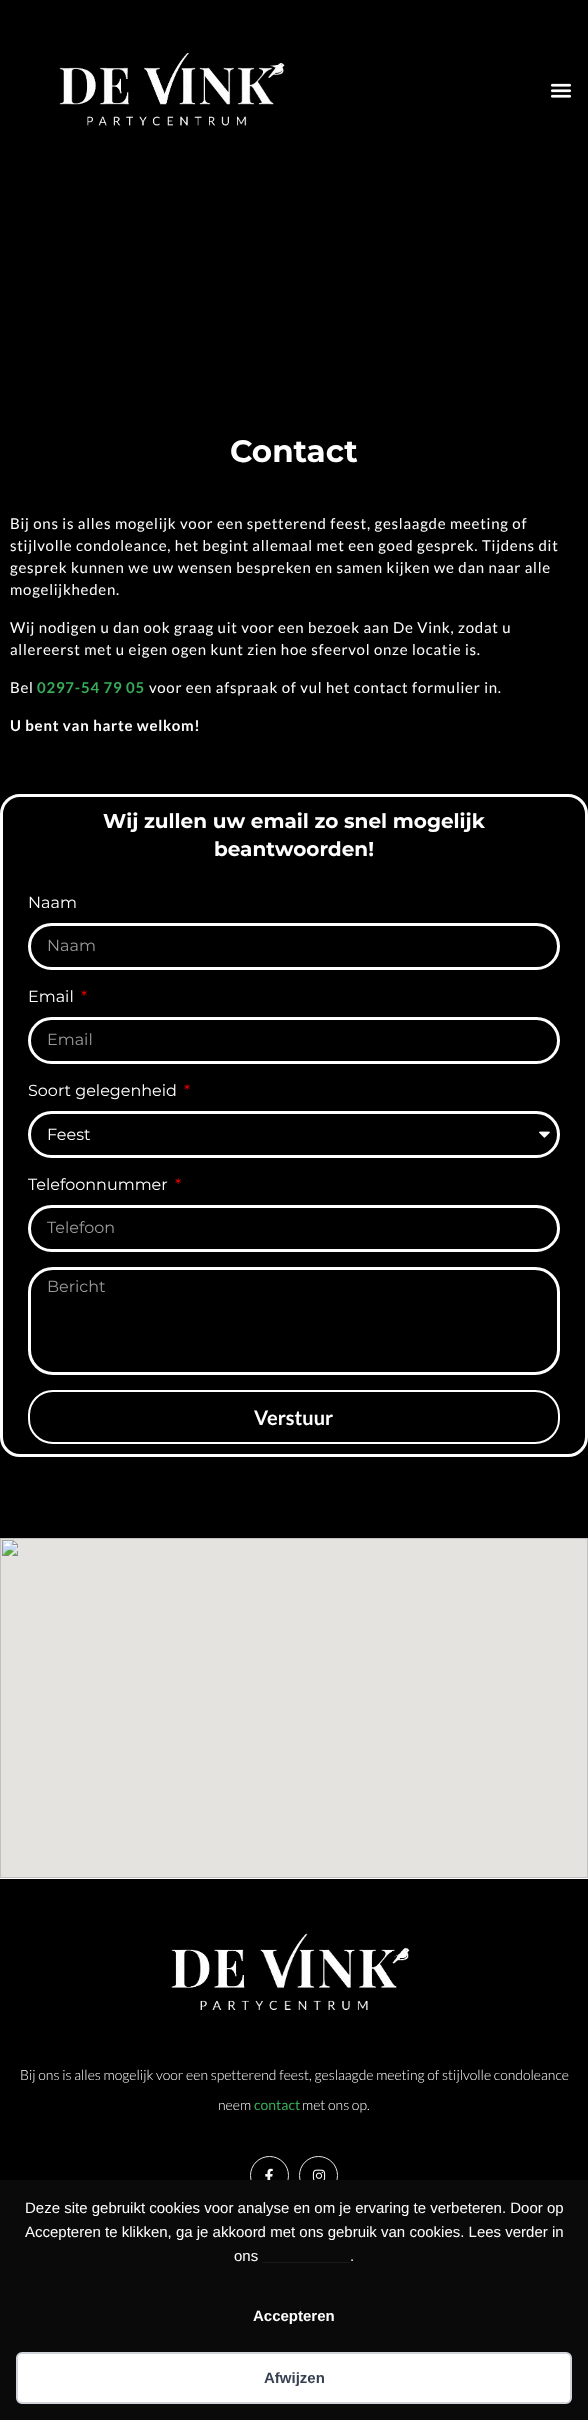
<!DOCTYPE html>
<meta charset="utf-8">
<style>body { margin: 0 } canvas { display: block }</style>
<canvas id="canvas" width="588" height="2420"></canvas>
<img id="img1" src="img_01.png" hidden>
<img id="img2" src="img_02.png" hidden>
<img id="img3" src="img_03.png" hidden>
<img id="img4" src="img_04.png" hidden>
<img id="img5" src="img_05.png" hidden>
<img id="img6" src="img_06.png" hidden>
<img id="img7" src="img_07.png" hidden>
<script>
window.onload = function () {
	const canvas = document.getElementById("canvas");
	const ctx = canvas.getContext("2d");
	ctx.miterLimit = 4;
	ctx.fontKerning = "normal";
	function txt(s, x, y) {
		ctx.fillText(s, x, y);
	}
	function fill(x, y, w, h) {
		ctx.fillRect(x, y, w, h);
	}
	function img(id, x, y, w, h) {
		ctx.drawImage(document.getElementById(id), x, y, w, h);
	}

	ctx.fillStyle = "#000000";
	fill(0, 0, 588, 2420);
	img("img1", 59, 53, 226, 73);
	img("img2", 550, 83, 22, 15);
	ctx.beginPath();
	ctx.roundRect(1.5, 795.5, 585, 660, 18.5);
	ctx.strokeStyle = "#FFFFFF";
	ctx.lineWidth = 3;
	ctx.stroke();
	ctx.beginPath();
	ctx.roundRect(29.5, 924.5, 529, 44, 22);
	ctx.stroke();
	ctx.beginPath();
	ctx.roundRect(29.5, 1018.5, 529, 44, 22);
	ctx.stroke();
	ctx.beginPath();
	ctx.roundRect(29.5, 1112.5, 529, 44, 22);
	ctx.stroke();
	img("img3", 539, 1131, 11, 7);
	ctx.beginPath();
	ctx.roundRect(29.5, 1206.5, 529, 44, 22);
	ctx.stroke();
	ctx.beginPath();
	ctx.roundRect(29.5, 1268.5, 529, 105, 23.5);
	ctx.stroke();
	ctx.beginPath();
	ctx.roundRect(29, 1391, 530, 52, 24);
	ctx.lineWidth = 2;
	ctx.stroke();
	img("img4", 0, 1538, 588, 340);
	ctx.fillStyle = "#FFFFFF";
	fill(0, 1878, 588, 1);
	img("img5", 171, 1933, 239, 78);
	ctx.beginPath();
	ctx.arc(269.5, 2175.5, 19, 0, Math.PI * 2);
	ctx.strokeStyle = "#E6E6E6";
	ctx.lineWidth = 1;
	ctx.stroke();
	img("img6", 265, 2168, 8, 12);
	ctx.beginPath();
	ctx.arc(318.5, 2175.5, 19, 0, Math.PI * 2);
	ctx.stroke();
	img("img7", 312, 2169, 14, 11);
	ctx.fillStyle = "rgba(0, 0, 0, 0.08)";
	ctx.filter = "blur(5px)";
	ctx.beginPath();
	ctx.rect(0, 2178, 588, 240);
	ctx.fill();
	ctx.filter = "none";
	ctx.fillStyle = "#0A0A0A";
	fill(0, 2180, 588, 240);
	ctx.fillStyle = "#1A1A1A";
	fill(262, 2262, 88, 1);
	ctx.fillStyle = "#FFFFFF";
	ctx.beginPath();
	ctx.roundRect(17, 2353, 554, 50, 5);
	ctx.fill();
	ctx.strokeStyle = "#D1D5DB";
	ctx.lineWidth = 2;
	ctx.stroke();
	ctx.font = "bold 31px Montserrat";
	txt("Contact", 230, 462);
	ctx.letterSpacing = "0.75px";
	ctx.font = "15px Lato";
	txt("Bij ons is alles mogelijk voor een spetterend feest, geslaagde meeting of", 10, 529);
	txt("stijlvolle condoleance, het begint allemaal met een goed gesprek. Tijdens dit", 10, 551);
	txt("gesprek kunnen we uw wensen bespreken en samen kijken we dan naar alle", 10, 573);
	txt("mogelijkheden.", 10, 595);
	txt("Wij nodigen u dan ook graag uit voor een bezoek aan De Vink, zodat u", 10, 633);
	txt("allereerst met u eigen ogen kunt zien hoe sfeervol onze locatie is.", 10, 655);
	txt("Bel", 10, 693);
	ctx.font = "bold 15px Lato";
	ctx.fillStyle = "#37AD5A";
	txt("0297-54 79 05", 37, 693);
	ctx.font = "15px Lato";
	ctx.fillStyle = "#FFFFFF";
	txt("voor een afspraak of vul het contact formulier in.", 149, 693);
	ctx.font = "bold 15px Lato";
	txt("U bent van harte welkom!", 10, 731);
	ctx.letterSpacing = "0px";
	ctx.font = "bold 20px Montserrat";
	txt("Wij zullen uw email zo snel mogelijk", 103, 828);
	txt("beantwoorden!", 214, 856);
	ctx.font = "16px Montserrat";
	txt("Naam", 28, 908);
	ctx.fillStyle = "#999999";
	txt("Naam", 47, 951);
	ctx.fillStyle = "#FFFFFF";
	txt("Email", 28, 1002);
	ctx.fillStyle = "#FF0000";
	txt("*", 81, 1002);
	ctx.fillStyle = "#999999";
	txt("Email", 47, 1045);
	ctx.fillStyle = "#FFFFFF";
	txt("Soort gelegenheid", 28, 1096);
	ctx.fillStyle = "#FF0000";
	txt("*", 184, 1096);
	ctx.fillStyle = "#FFFFFF";
	txt("Feest", 47, 1140);
	txt("Telefoonnummer", 28, 1190);
	ctx.fillStyle = "#FF0000";
	txt("*", 175, 1190);
	ctx.fillStyle = "#999999";
	txt("Telefoon", 47, 1233);
	txt("Bericht", 47, 1292);
	ctx.font = "bold 20px Lato";
	ctx.fillStyle = "#FFFFFF";
	txt("Verstuur", 254, 1425);
	ctx.font = "300 14px Lato";
	txt("Bij ons is alles mogelijk voor een spetterend feest, geslaagde meeting of stijlvolle condoleance", 20, 2080);
	txt("neem", 218, 2110);
	ctx.font = "14px Lato";
	ctx.fillStyle = "#37AD5A";
	txt("contact", 254, 2110);
	ctx.font = "300 14px Lato";
	ctx.fillStyle = "#FFFFFF";
	txt("met ons op.", 302, 2110);
	ctx.font = "15px Liberation Sans";
	txt("Deze site gebruikt cookies voor analyse en om je ervaring te verbeteren. Door op", 25, 2213);
	txt("Accepteren te klikken, ga je akkoord met ons gebruik van cookies. Lees verder in", 25, 2237);
	txt("ons", 234, 2261);
	txt(".", 350, 2261);
	ctx.font = "bold 15px Liberation Sans";
	txt("Accepteren", 253, 2321);
	ctx.fillStyle = "#374151";
	txt("Afwijzen", 264, 2383);
};
</script>
